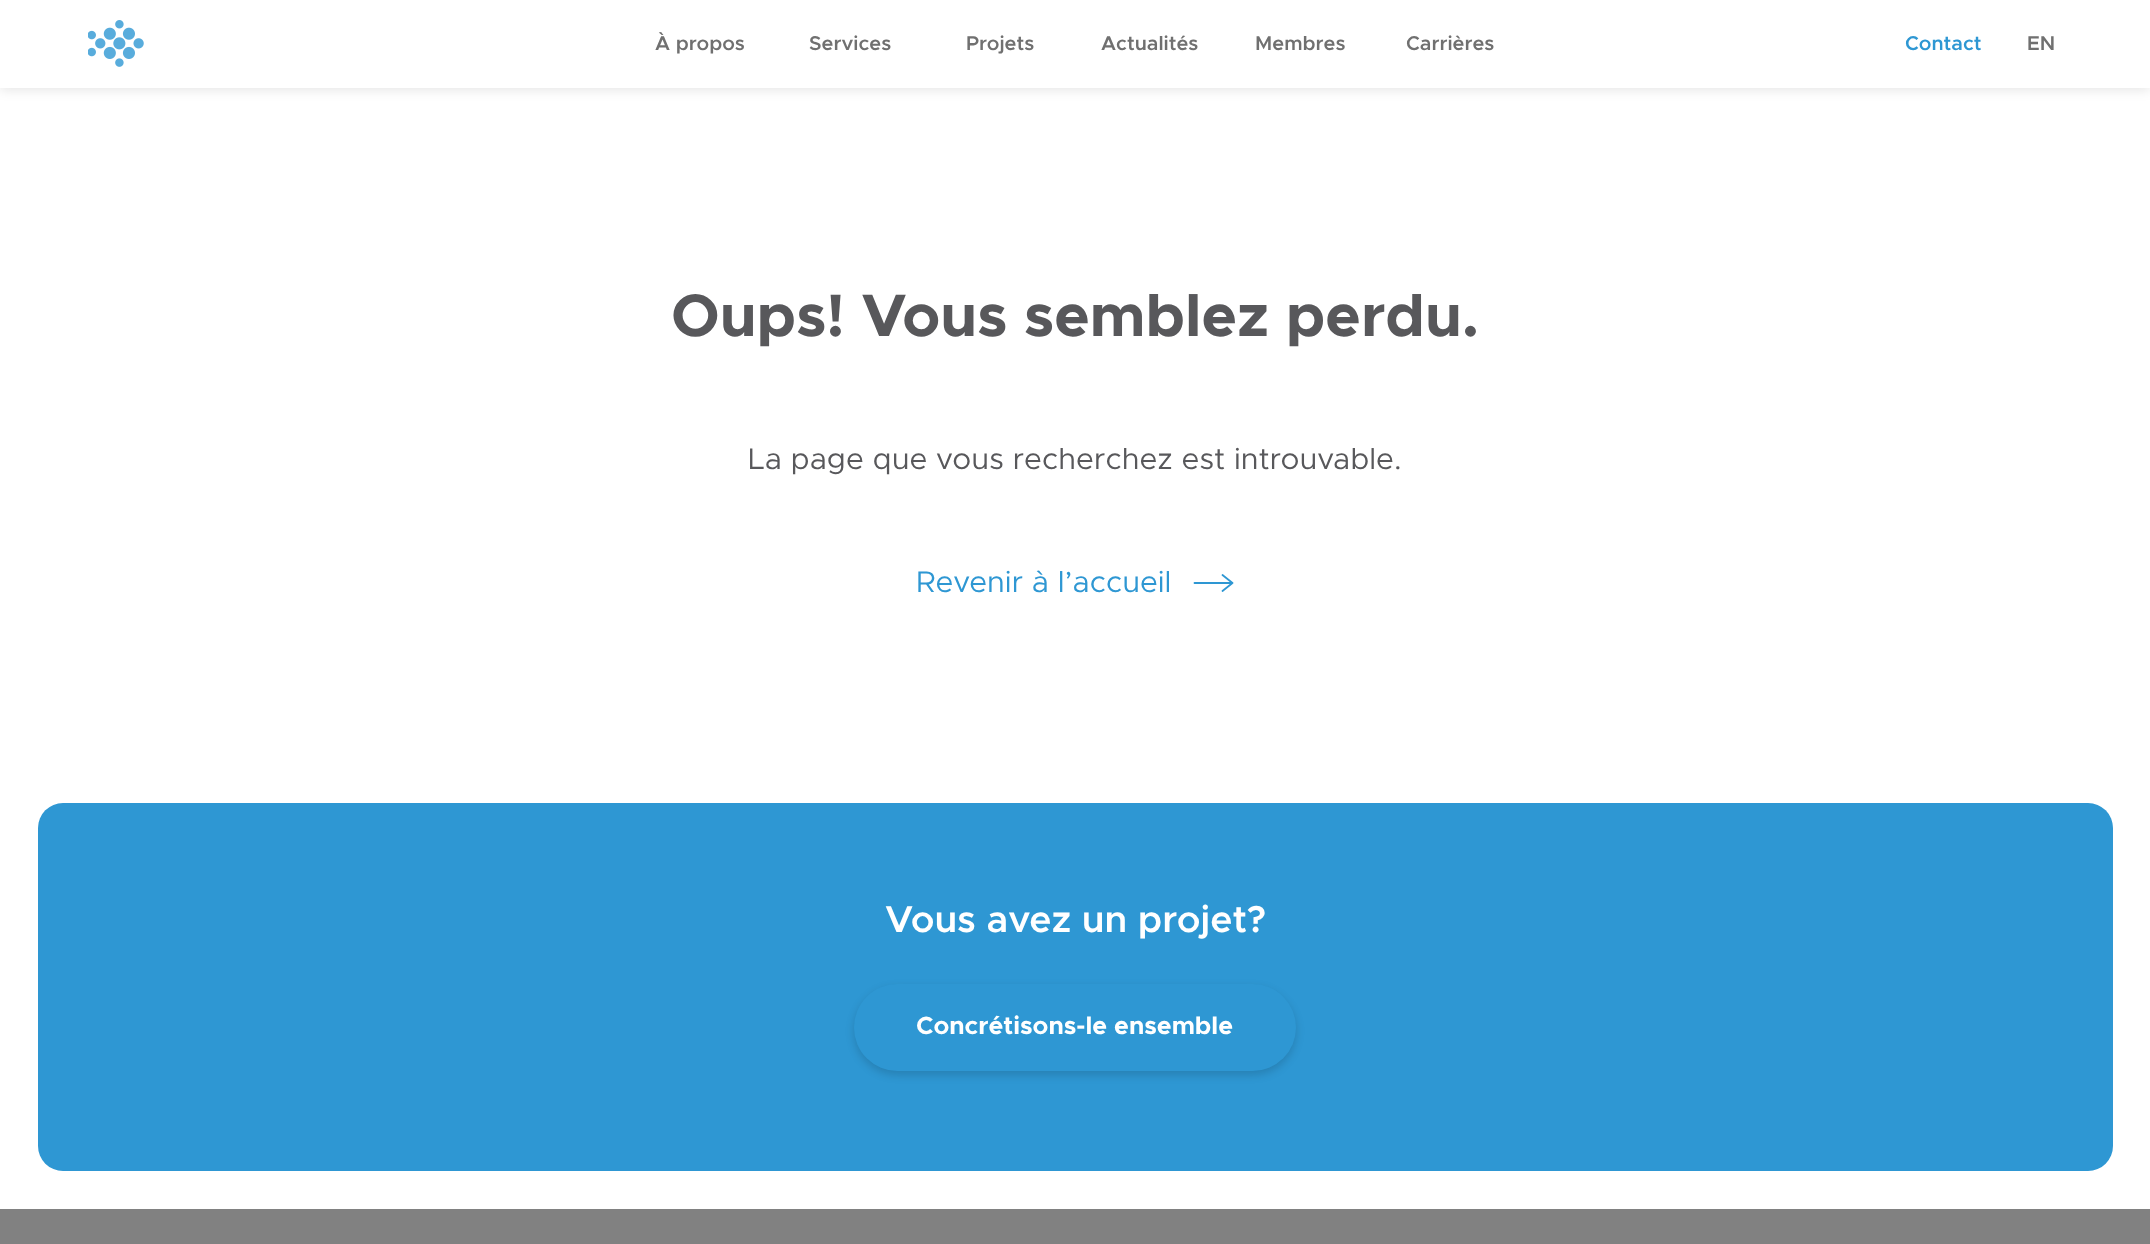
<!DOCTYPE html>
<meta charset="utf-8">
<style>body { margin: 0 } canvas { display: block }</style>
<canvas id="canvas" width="2150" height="1244"></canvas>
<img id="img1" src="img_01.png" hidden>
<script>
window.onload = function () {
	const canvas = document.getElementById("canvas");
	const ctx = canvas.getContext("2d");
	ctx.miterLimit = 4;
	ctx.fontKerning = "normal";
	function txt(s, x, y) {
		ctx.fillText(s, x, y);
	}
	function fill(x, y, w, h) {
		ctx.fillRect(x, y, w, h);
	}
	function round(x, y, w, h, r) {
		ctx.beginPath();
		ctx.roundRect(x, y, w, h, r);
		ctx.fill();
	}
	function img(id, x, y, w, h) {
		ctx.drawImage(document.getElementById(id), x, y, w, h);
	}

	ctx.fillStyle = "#FFFFFF";
	fill(0, 0, 2150, 1244);
	ctx.fillStyle = "rgba(0, 0, 0, 0.1)";
	ctx.filter = "blur(6px)";
	ctx.beginPath();
	ctx.rect(0, 3, 2150, 87);
	ctx.fill();
	ctx.filter = "none";
	ctx.fillStyle = "#FFFFFF";
	fill(0, 0, 2150, 88);
	img("img1", 88, 20, 56, 47);
	ctx.beginPath();
	ctx.moveTo(1194.5, 583);
	ctx.lineTo(1232.5, 583);
	ctx.moveTo(1232.5, 583);
	ctx.lineTo(1222.5, 575);
	ctx.moveTo(1222.5, 591);
	ctx.lineTo(1232.5, 583);
	ctx.strokeStyle = "#2E97D3";
	ctx.lineWidth = 1.8;
	ctx.lineCap = "round";
	ctx.stroke();
	ctx.fillStyle = "#2E97D3";
	round(38, 803, 2075, 368, 25);
	ctx.fillStyle = "rgba(0, 0, 0, 0.15)";
	ctx.filter = "blur(4px)";
	ctx.beginPath();
	ctx.roundRect(854, 988, 442, 87, 43.5);
	ctx.fill();
	ctx.filter = "none";
	ctx.fillStyle = "#2E97D3";
	round(854, 984, 442, 87, 43.5);
	ctx.fillStyle = "#818181";
	fill(0, 1209, 2150, 35);
	ctx.font = "600 20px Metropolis";
	ctx.fillStyle = "#707070";
	txt("À propos", 655, 50);
	txt("Services", 809, 50);
	txt("Projets", 966, 50);
	txt("Actualités", 1101, 50);
	txt("Membres", 1255, 50);
	txt("Carrières", 1406, 50);
	ctx.fillStyle = "#2E97D3";
	txt("Contact", 1905, 50);
	ctx.fillStyle = "#707070";
	txt("EN", 2027, 50);
	ctx.font = "bold 60px Metropolis";
	ctx.fillStyle = "#58585B";
	txt("Oups! Vous semblez perdu.", 671, 336);
	ctx.font = "30px Metropolis";
	txt("La page que vous recherchez est introuvable.", 748, 469);
	ctx.fillStyle = "#2E97D3";
	txt("Revenir à l’accueil", 916, 592);
	ctx.font = "600 37.5px Metropolis";
	ctx.fillStyle = "#FFFFFF";
	txt("Vous avez un projet?", 885, 932);
	ctx.font = "bold 25px Metropolis";
	txt("Concrétisons-le ensemble", 916, 1034);
};
</script>
